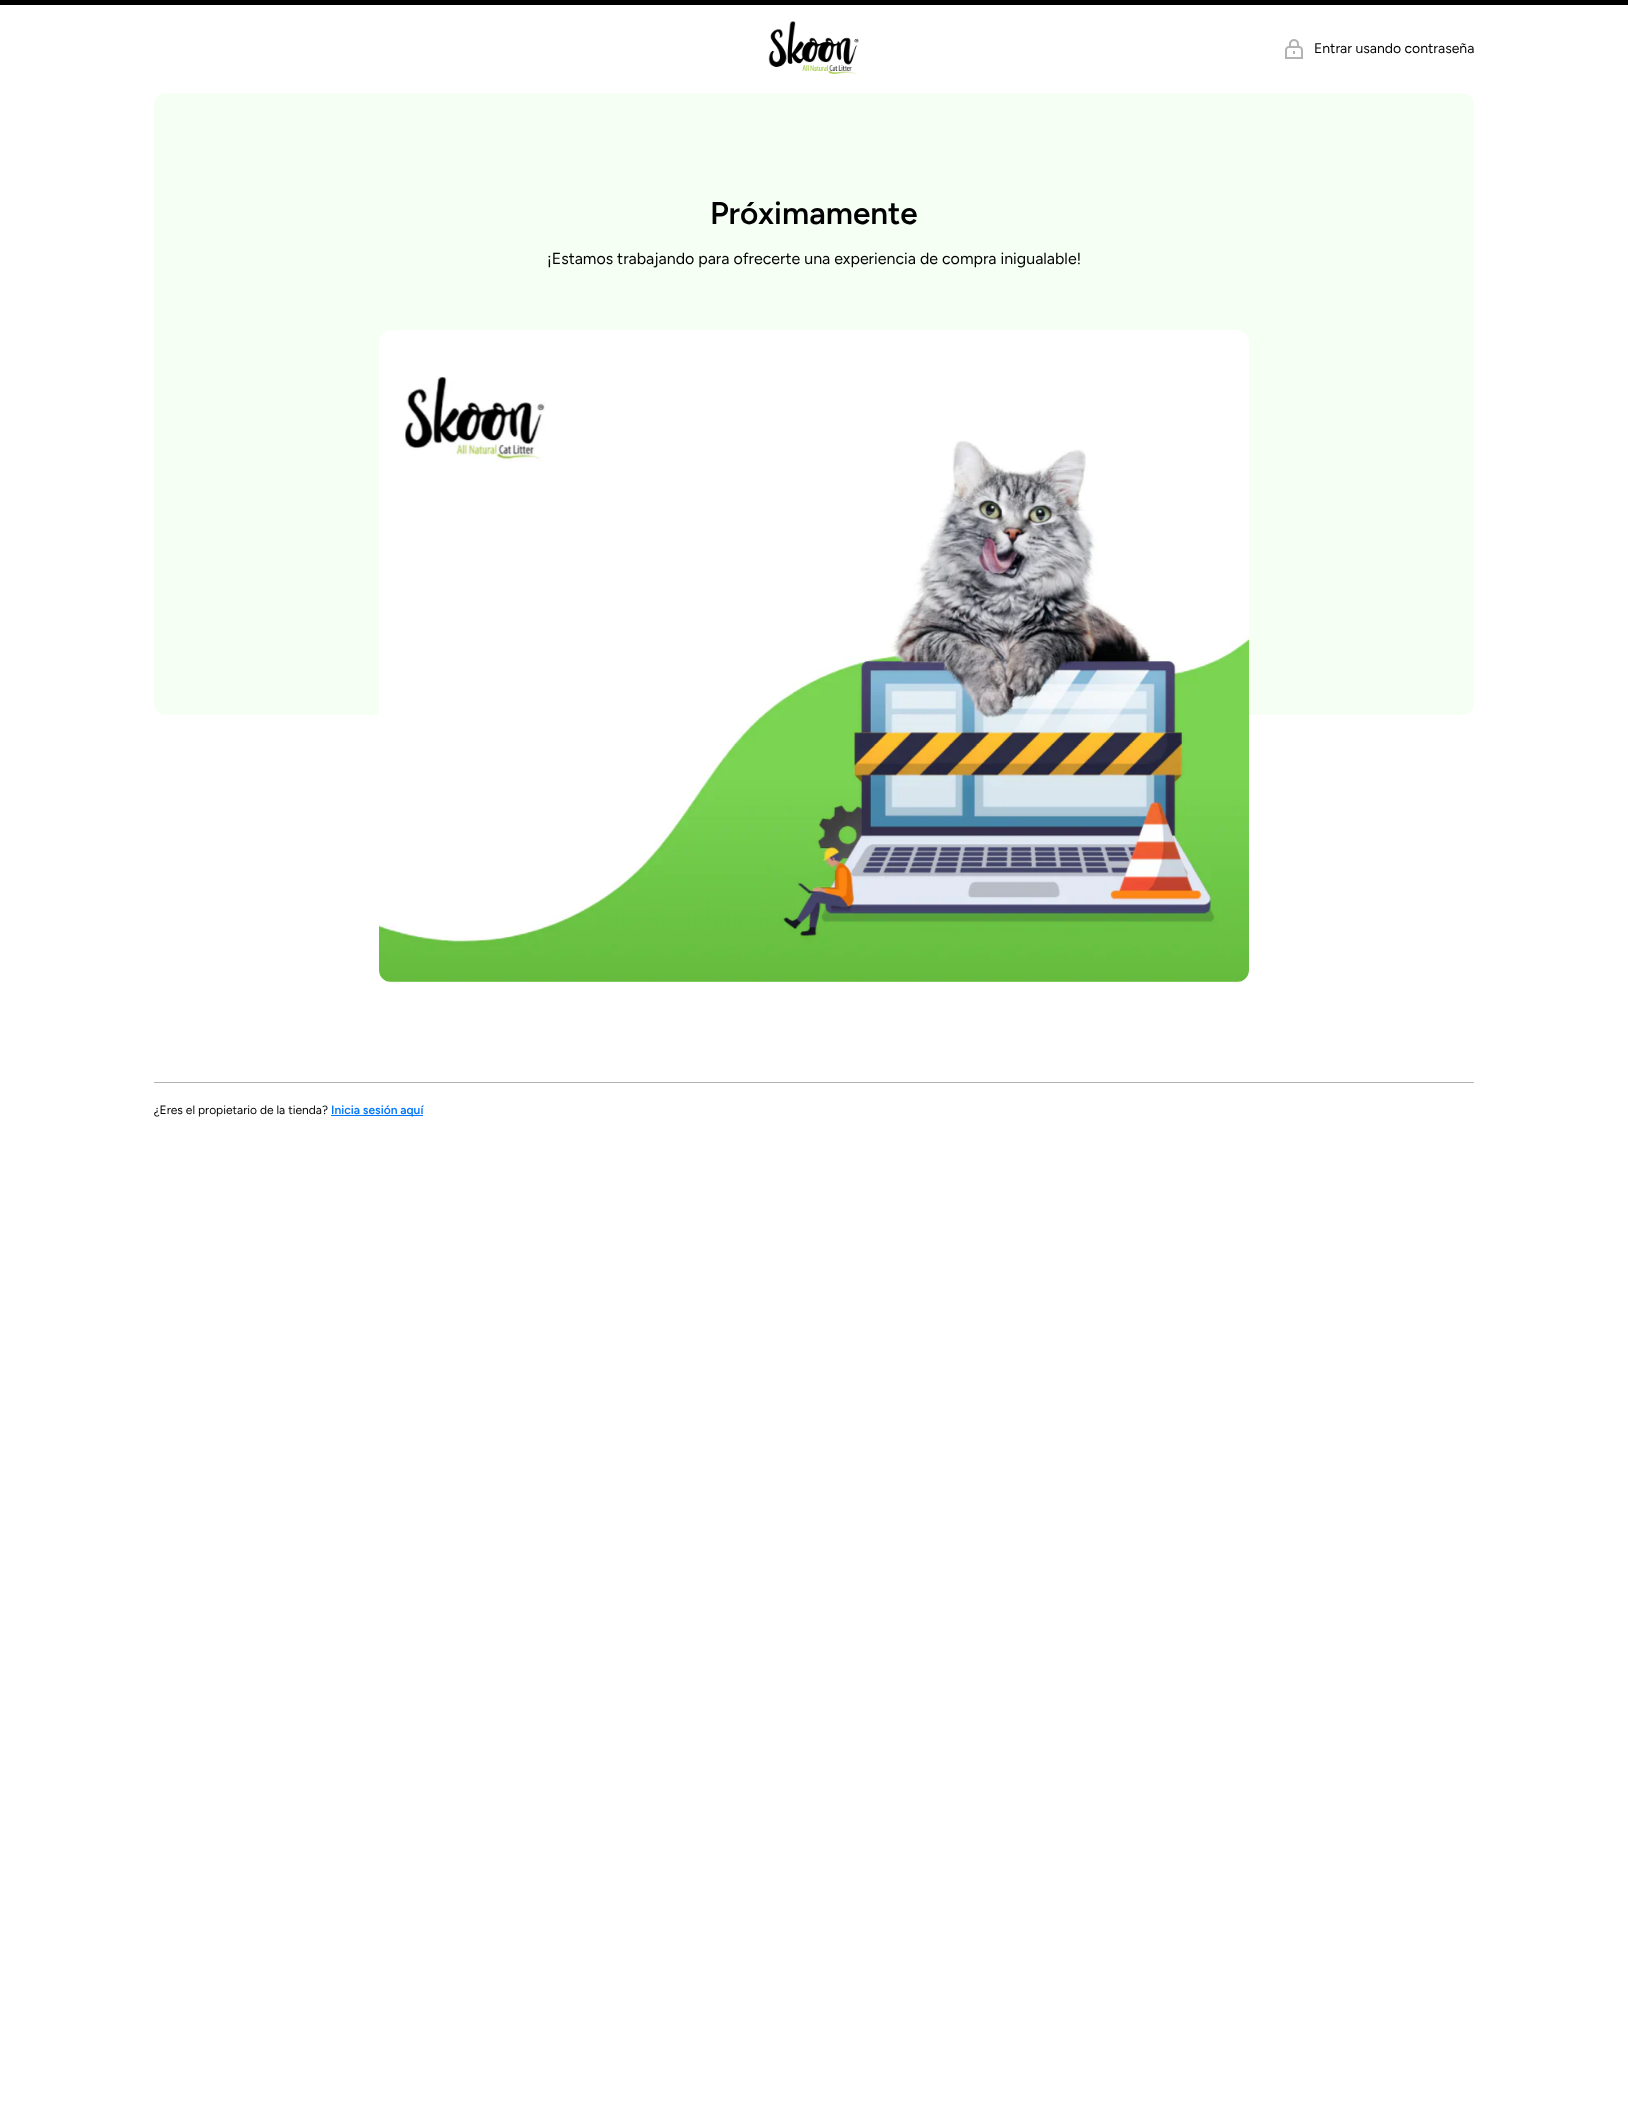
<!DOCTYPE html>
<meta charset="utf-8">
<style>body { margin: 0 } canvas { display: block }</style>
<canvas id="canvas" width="1628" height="2101"></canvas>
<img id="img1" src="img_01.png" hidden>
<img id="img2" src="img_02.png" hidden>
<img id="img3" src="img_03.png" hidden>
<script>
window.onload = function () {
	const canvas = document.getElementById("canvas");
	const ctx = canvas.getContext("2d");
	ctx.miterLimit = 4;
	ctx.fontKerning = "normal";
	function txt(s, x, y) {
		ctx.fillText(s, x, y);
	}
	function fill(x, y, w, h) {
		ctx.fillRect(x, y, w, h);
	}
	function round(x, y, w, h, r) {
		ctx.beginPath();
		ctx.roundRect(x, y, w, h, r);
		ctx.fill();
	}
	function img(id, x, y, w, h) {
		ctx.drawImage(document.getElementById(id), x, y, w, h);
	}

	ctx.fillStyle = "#FFFFFF";
	fill(0, 0, 1628, 2101);
	ctx.fillStyle = "#000000";
	fill(0, 0, 1628, 5);
	img("img1", 768, 21, 91, 54);
	img("img2", 1285, 39, 18, 20);
	ctx.fillStyle = "#F5FFF4";
	round(154, 93, 1320, 622, 12);
	img("img3", 379, 330, 870, 652);
	ctx.fillStyle = "#B3B3B3";
	fill(154, 1082, 1320, 1);
	ctx.fillStyle = "#0077FC";
	fill(331, 1115, 92, 1);
	ctx.font = "14px Figtree";
	ctx.fillStyle = "#000000";
	txt("Entrar usando contraseña", 1314, 53);
	ctx.font = "600 31.5px Figtree";
	txt("Próximamente", 710, 224);
	ctx.font = "16px Figtree";
	txt("¡Estamos trabajando para ofrecerte una experiencia de compra inigualable!", 547, 264);
	ctx.font = "12px Figtree";
	txt("¿Eres el propietario de la tienda?", 154, 1114);
	ctx.font = "600 12px Figtree";
	ctx.fillStyle = "#0077FC";
	txt("Inicia sesión aquí", 331, 1114);
};
</script>
